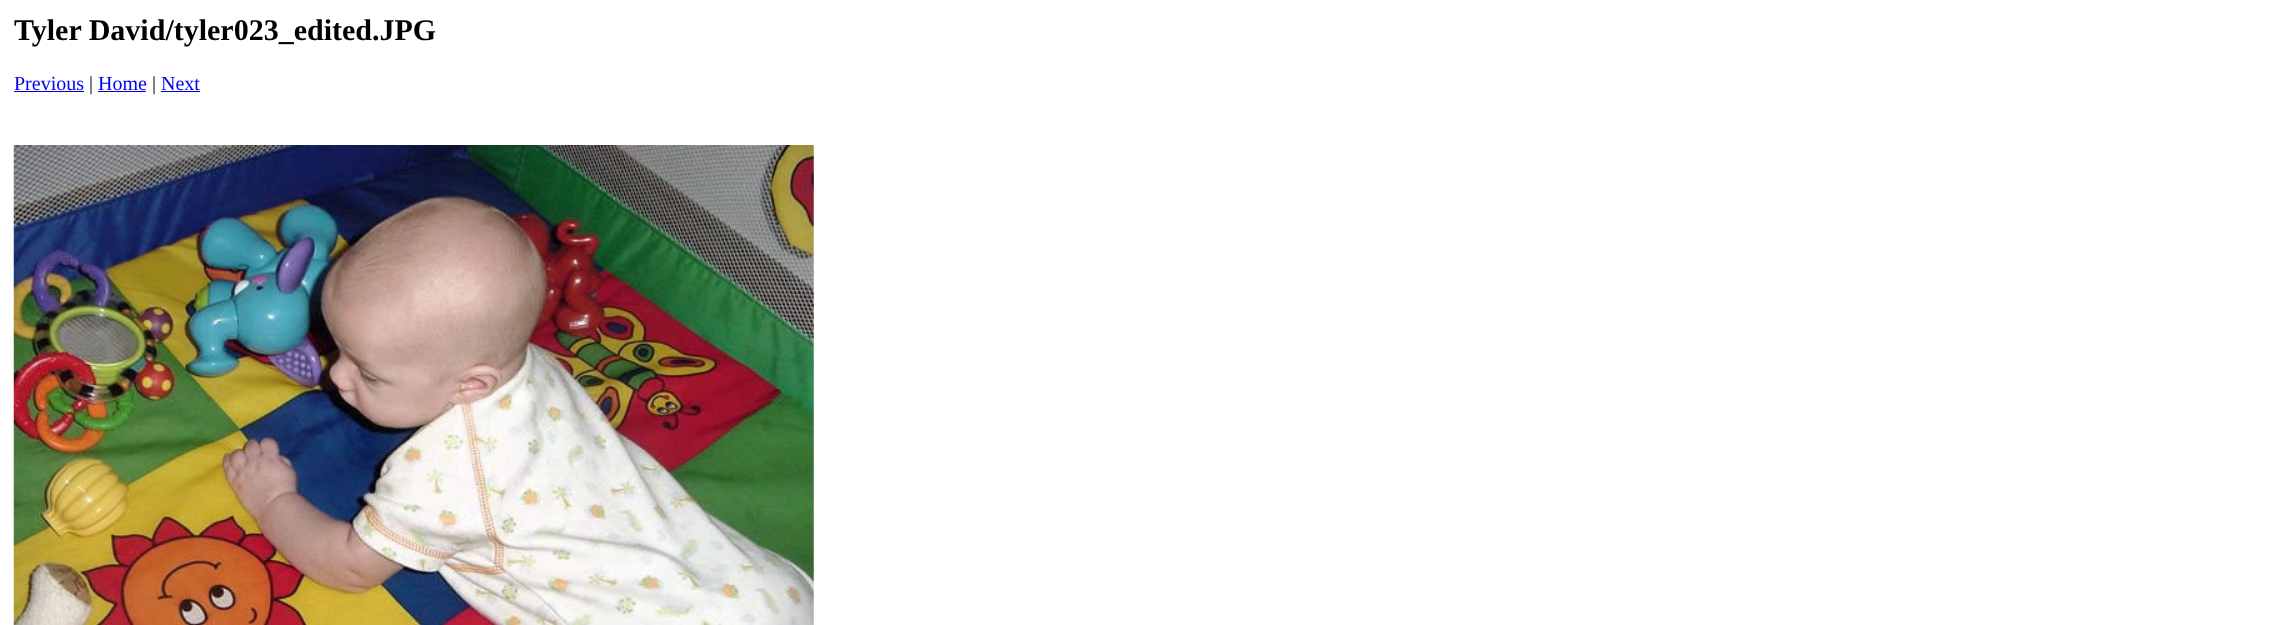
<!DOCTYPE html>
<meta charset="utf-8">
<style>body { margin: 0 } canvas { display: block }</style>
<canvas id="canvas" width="2282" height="625"></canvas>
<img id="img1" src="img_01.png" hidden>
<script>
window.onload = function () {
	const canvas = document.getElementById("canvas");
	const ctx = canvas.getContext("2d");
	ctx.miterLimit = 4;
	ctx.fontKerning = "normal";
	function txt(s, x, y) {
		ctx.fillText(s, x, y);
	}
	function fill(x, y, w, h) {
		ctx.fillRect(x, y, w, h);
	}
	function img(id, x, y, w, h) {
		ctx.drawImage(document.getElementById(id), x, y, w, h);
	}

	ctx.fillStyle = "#FFFFFF";
	fill(0, 0, 2282, 625);
	ctx.fillStyle = "#0000EE";
	fill(14, 91, 70, 1);
	fill(98, 91, 48, 1);
	fill(161, 91, 39, 1);
	img("img1", 13, 145, 801, 480);
	ctx.font = "bold 30px Liberation Serif";
	ctx.fillStyle = "#000000";
	txt("Tyler David/tyler023_edited.JPG", 14, 40);
	ctx.font = "20px Liberation Serif";
	ctx.fillStyle = "#0000EE";
	txt("Previous", 14, 90);
	ctx.fillStyle = "#000000";
	txt("|", 89, 90);
	ctx.fillStyle = "#0000EE";
	txt("Home", 98, 90);
	ctx.fillStyle = "#000000";
	txt("|", 152, 90);
	ctx.fillStyle = "#0000EE";
	txt("Next", 161, 90);
};
</script>
